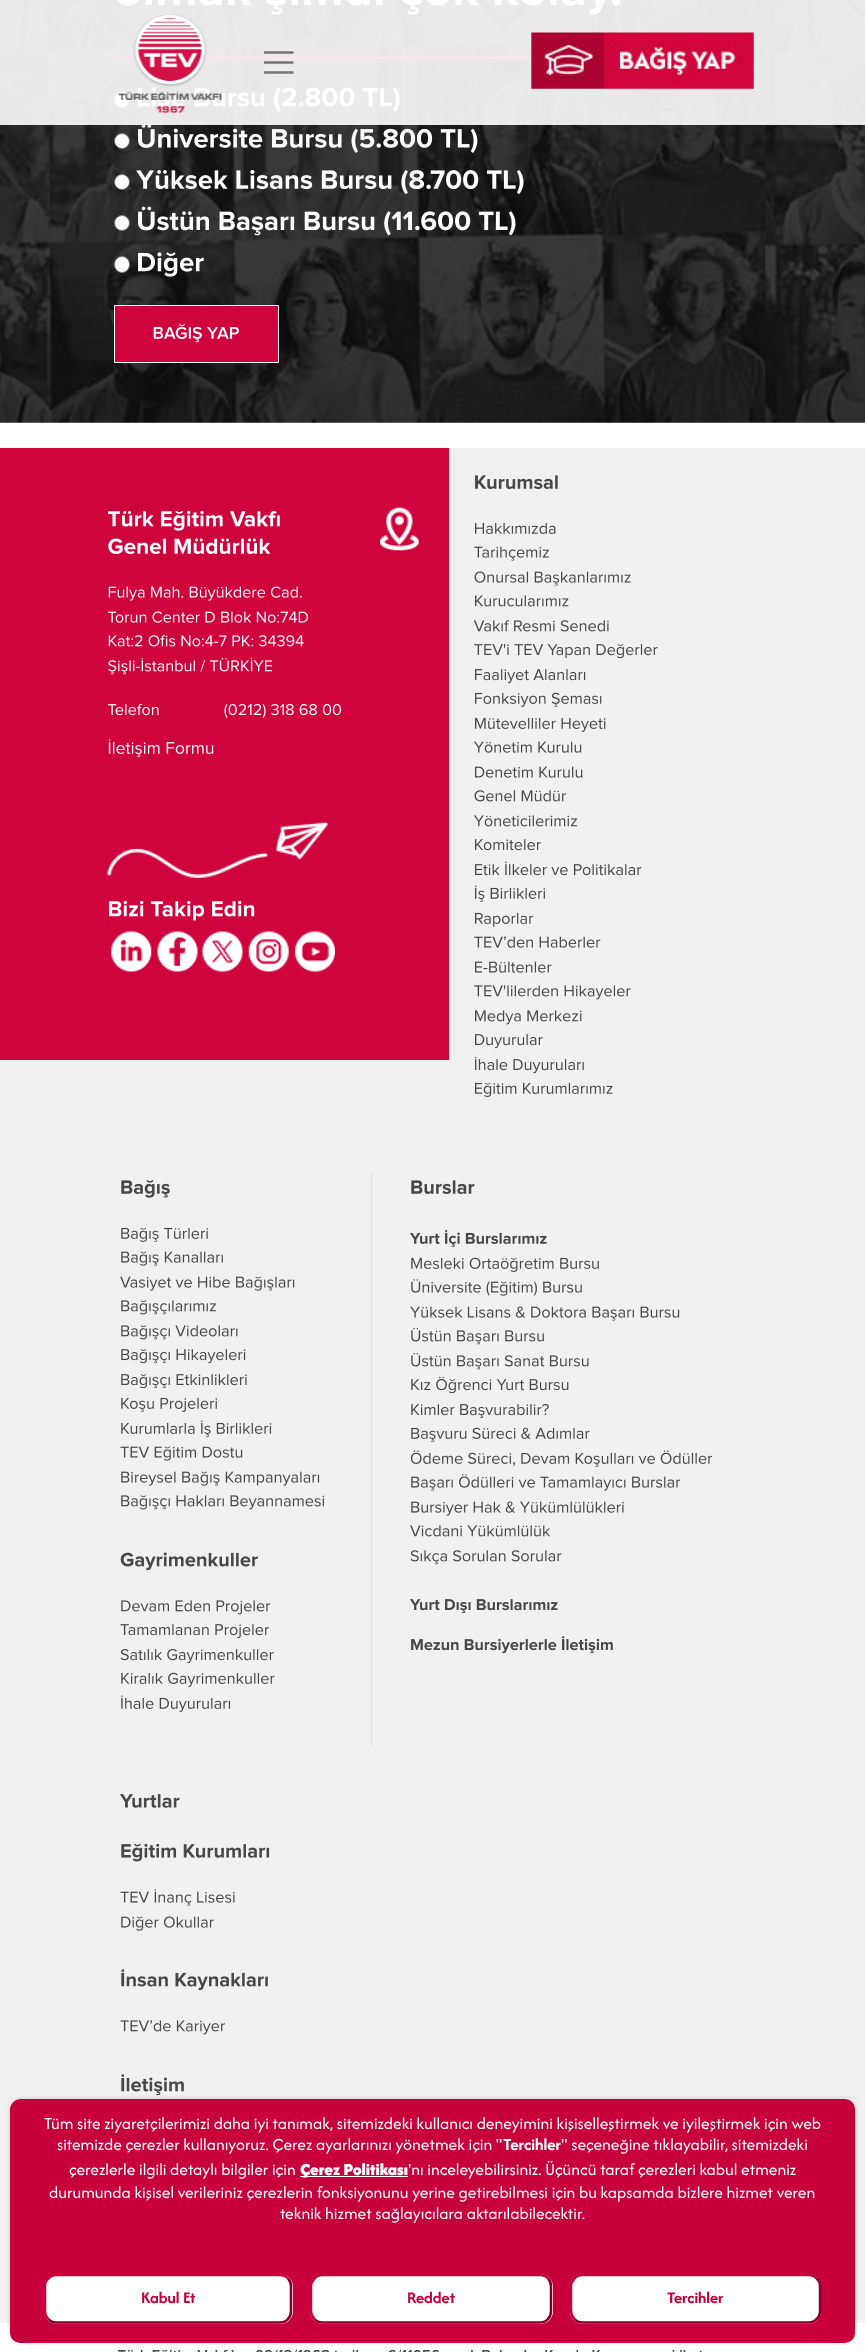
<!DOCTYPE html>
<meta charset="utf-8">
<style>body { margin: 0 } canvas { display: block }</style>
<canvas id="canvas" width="865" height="2352"></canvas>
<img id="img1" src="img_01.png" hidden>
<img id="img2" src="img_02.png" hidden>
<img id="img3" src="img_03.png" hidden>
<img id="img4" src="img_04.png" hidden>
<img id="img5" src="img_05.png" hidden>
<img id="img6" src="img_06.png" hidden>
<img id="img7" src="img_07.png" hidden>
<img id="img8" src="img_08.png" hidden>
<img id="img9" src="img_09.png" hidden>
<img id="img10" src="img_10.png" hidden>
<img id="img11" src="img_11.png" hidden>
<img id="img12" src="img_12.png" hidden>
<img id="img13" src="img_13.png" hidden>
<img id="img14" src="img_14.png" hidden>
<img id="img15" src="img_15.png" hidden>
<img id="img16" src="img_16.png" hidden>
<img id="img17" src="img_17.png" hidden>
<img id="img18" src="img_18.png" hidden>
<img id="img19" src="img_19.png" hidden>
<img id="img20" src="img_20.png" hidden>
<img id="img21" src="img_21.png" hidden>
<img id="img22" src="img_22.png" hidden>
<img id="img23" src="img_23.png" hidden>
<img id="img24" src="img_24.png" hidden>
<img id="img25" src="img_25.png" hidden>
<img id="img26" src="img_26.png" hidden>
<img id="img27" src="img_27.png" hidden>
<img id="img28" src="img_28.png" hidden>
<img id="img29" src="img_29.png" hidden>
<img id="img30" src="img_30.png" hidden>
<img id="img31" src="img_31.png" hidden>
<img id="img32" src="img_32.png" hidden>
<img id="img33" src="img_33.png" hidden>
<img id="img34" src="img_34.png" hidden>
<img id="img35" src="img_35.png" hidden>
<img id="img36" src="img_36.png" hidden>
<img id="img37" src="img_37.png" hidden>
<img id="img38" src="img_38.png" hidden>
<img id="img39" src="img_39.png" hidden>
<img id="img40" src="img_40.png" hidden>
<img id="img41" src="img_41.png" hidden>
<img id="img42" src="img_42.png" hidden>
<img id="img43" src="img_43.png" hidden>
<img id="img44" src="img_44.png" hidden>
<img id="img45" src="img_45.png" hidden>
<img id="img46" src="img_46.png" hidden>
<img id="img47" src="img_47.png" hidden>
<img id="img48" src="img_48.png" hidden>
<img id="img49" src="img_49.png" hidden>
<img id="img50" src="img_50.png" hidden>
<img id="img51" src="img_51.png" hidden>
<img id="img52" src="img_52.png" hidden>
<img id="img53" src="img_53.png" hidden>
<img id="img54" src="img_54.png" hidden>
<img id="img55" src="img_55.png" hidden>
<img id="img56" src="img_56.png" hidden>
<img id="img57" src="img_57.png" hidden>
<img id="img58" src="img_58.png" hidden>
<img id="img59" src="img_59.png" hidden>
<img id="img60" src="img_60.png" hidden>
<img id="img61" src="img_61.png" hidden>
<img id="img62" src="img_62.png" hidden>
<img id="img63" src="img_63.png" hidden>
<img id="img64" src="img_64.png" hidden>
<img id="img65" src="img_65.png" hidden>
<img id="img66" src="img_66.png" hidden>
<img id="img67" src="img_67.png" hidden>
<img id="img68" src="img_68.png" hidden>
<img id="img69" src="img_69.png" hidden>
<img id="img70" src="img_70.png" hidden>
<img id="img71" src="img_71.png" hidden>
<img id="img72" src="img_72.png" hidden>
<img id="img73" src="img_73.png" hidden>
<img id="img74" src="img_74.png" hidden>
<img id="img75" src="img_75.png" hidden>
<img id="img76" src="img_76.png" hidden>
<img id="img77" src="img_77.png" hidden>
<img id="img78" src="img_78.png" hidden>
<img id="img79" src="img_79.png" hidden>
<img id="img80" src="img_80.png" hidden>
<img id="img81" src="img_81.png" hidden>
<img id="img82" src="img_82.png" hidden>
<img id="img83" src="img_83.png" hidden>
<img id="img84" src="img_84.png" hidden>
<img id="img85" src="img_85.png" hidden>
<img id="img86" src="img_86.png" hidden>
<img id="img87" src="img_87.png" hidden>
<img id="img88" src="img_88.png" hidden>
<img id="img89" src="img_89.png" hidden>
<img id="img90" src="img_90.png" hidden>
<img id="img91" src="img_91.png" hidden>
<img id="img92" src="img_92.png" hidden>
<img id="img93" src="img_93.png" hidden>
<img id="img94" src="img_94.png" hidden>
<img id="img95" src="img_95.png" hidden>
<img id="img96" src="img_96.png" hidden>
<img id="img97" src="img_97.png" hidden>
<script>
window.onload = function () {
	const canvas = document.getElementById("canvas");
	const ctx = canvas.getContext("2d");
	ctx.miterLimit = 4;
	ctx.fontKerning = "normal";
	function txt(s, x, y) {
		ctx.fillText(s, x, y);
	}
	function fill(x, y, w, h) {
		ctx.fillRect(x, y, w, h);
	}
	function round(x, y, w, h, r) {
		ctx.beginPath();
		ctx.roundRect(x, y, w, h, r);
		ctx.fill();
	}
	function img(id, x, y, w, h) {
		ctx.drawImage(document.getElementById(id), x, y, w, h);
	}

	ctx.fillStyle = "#FFFFFF";
	fill(0, 0, 865, 2352);
	img("img1", 0, 0, 865, 423);
	img("img2", 117, 0, 504, 15);
	ctx.fillStyle = "#D0043C";
	fill(114, 56, 418, 3);
	ctx.fillStyle = "#FFFFFF";
	ctx.beginPath();
	ctx.roundRect(114.5, 91.5, 15, 16, 7.5);
	ctx.fill();
	ctx.strokeStyle = "#767676";
	ctx.stroke();
	img("img3", 137, 87, 263, 25);
	ctx.beginPath();
	ctx.arc(122, 141, 7.5, 0, Math.PI * 2);
	ctx.fill();
	ctx.stroke();
	img("img4", 138, 124, 340, 29);
	ctx.beginPath();
	ctx.arc(122, 182, 7.5, 0, Math.PI * 2);
	ctx.fill();
	ctx.stroke();
	img("img5", 136, 169, 388, 26);
	ctx.beginPath();
	ctx.arc(122, 223, 7.5, 0, Math.PI * 2);
	ctx.fill();
	ctx.stroke();
	img("img6", 138, 206, 378, 30);
	ctx.beginPath();
	ctx.roundRect(114.5, 256.5, 15, 16, 7.5);
	ctx.fill();
	ctx.stroke();
	img("img7", 138, 252, 66, 25);
	ctx.fillStyle = "#D0043C";
	ctx.beginPath();
	ctx.rect(114.5, 305.5, 164, 57);
	ctx.fill();
	ctx.strokeStyle = "#FFFFFF";
	ctx.stroke();
	img("img8", 153, 324, 86, 19);
	ctx.fillStyle = "#F1F1F1";
	fill(0, 448, 865, 1875);
	ctx.fillStyle = "#D0043C";
	fill(0, 448, 449, 612);
	img("img9", 108, 510, 115, 21);
	img("img10", 230, 511, 50, 16);
	img("img11", 380, 507, 39, 44);
	img("img12", 108, 538, 163, 16);
	img("img13", 108, 586, 194, 15);
	img("img14", 108, 611, 200, 12);
	img("img15", 108, 635, 196, 12);
	img("img16", 108, 658, 165, 17);
	img("img17", 108, 704, 51, 12);
	img("img18", 224, 704, 118, 15);
	img("img19", 108, 739, 106, 19);
	img("img20", 107, 822, 221, 56);
	img("img21", 109, 900, 146, 21);
	ctx.beginPath();
	ctx.arc(131.5, 951.5, 16, 0, Math.PI * 2);
	ctx.lineWidth = 3;
	ctx.stroke();
	img("img22", 111, 931, 41, 41);
	ctx.beginPath();
	ctx.arc(177.5, 951.5, 16, 0, Math.PI * 2);
	ctx.stroke();
	img("img23", 157, 931, 41, 41);
	ctx.beginPath();
	ctx.arc(222.5, 951.5, 16, 0, Math.PI * 2);
	ctx.stroke();
	img("img24", 202, 931, 41, 41);
	ctx.beginPath();
	ctx.arc(268.5, 951.5, 16, 0, Math.PI * 2);
	ctx.stroke();
	img("img25", 248, 931, 41, 41);
	ctx.beginPath();
	ctx.arc(315.5, 951.5, 16, 0, Math.PI * 2);
	ctx.stroke();
	img("img26", 295, 931, 40, 41);
	img("img27", 475, 475, 83, 14);
	img("img28", 475, 522, 81, 12);
	img("img29", 474, 546, 75, 15);
	img("img30", 474, 571, 157, 15);
	img("img31", 475, 595, 94, 12);
	img("img32", 474, 620, 135, 12);
	img("img33", 474, 644, 184, 15);
	img("img34", 475, 669, 111, 15);
	img("img35", 475, 692, 127, 15);
	img("img36", 475, 717, 131, 15);
	img("img37", 474, 741, 108, 12);
	img("img38", 475, 766, 108, 12);
	img("img39", 474, 790, 92, 12);
	img("img40", 474, 815, 103, 12);
	img("img41", 475, 839, 66, 12);
	img("img42", 475, 861, 167, 15);
	img("img43", 475, 885, 70, 17);
	img("img44", 475, 912, 59, 15);
	img("img45", 474, 936, 127, 12);
	img("img46", 475, 961, 77, 12);
	img("img47", 474, 985, 157, 15);
	img("img48", 475, 1010, 107, 15);
	img("img49", 475, 1034, 68, 15);
	img("img50", 475, 1056, 109, 18);
	img("img51", 475, 1082, 138, 15);
	ctx.fillStyle = "#DFDFDF";
	fill(371, 1173, 1, 573);
	img("img52", 121, 1180, 49, 18);
	img("img53", 121, 1227, 87, 15);
	img("img54", 121, 1251, 102, 15);
	img("img55", 120, 1276, 175, 15);
	img("img56", 121, 1300, 95, 15);
	img("img57", 121, 1325, 117, 15);
	img("img58", 121, 1349, 125, 15);
	img("img59", 121, 1374, 126, 15);
	img("img60", 121, 1397, 96, 15);
	img("img61", 121, 1420, 151, 17);
	img("img62", 120, 1446, 123, 15);
	img("img63", 121, 1471, 199, 15);
	img("img64", 121, 1495, 204, 15);
	img("img65", 120, 1552, 138, 19);
	img("img66", 121, 1600, 150, 15);
	img("img67", 120, 1624, 149, 15);
	img("img68", 120, 1649, 154, 15);
	img("img69", 121, 1672, 154, 15);
	img("img70", 121, 1695, 110, 17);
	img("img71", 411, 1180, 64, 14);
	img("img72", 410, 1229, 137, 18);
	img("img73", 411, 1257, 188, 15);
	img("img74", 411, 1279, 171, 17);
	img("img75", 410, 1306, 270, 15);
	img("img76", 411, 1328, 133, 17);
	img("img77", 411, 1353, 178, 17);
	img("img78", 411, 1376, 158, 18);
	img("img79", 411, 1404, 138, 15);
	img("img80", 411, 1427, 179, 15);
	img("img81", 410, 1450, 303, 17);
	img("img82", 411, 1474, 270, 17);
	img("img83", 411, 1501, 213, 15);
	img("img84", 410, 1525, 140, 12);
	img("img85", 410, 1550, 152, 15);
	img("img86", 410, 1599, 148, 15);
	img("img87", 411, 1636, 202, 18);
	img("img88", 120, 1794, 60, 14);
	img("img89", 121, 1843, 149, 19);
	img("img90", 120, 1889, 115, 17);
	img("img91", 121, 1916, 93, 15);
	img("img92", 121, 1969, 147, 22);
	img("img93", 120, 2020, 105, 15);
	img("img94", 121, 2074, 63, 22);
	img("img95", 117, 2349, 585, 3);
	ctx.fillStyle = "rgba(255, 255, 255, 0.9)";
	fill(0, 0, 865, 125);
	img("img96", 118, 14, 104, 99);
	ctx.beginPath();
	ctx.moveTo(265, 52.5);
	ctx.lineTo(292.5, 52.5);
	ctx.moveTo(265, 62.5);
	ctx.lineTo(292.5, 62.5);
	ctx.moveTo(265, 72.5);
	ctx.lineTo(292.5, 72.5);
	ctx.strokeStyle = "#767676";
	ctx.lineWidth = 2.5;
	ctx.lineCap = "round";
	ctx.stroke();
	img("img97", 531, 32, 223, 57);
	ctx.fillStyle = "#000000";
	ctx.filter = "blur(5px)";
	ctx.beginPath();
	ctx.roundRect(16, 2105, 833, 231, 5);
	ctx.fill();
	ctx.filter = "none";
	ctx.fillStyle = "#C7003B";
	ctx.beginPath();
	ctx.roundRect(10, 2099, 845, 244, [11, 10, 10, 10]);
	ctx.fill();
	ctx.fillStyle = "#FFFFFF";
	fill(300, 2176, 108, 1);
	round(44, 2274, 249, 50, 13);
	ctx.beginPath();
	ctx.moveTo(288, 2278.5);
	ctx.bezierCurveTo(290, 2280.5, 291, 2283.5, 291, 2286);
	ctx.lineTo(291, 2311);
	ctx.bezierCurveTo(291, 2314, 290, 2317, 288, 2319);
	ctx.bezierCurveTo(286, 2321.5, 283, 2322.5, 280, 2322.5);
	ctx.lineTo(56, 2322.5);
	ctx.bezierCurveTo(53.5, 2322.5, 50.5, 2321.5, 48.5, 2319);
	ctx.strokeStyle = "#850027";
	ctx.lineCap = "butt";
	ctx.stroke();
	ctx.beginPath();
	ctx.moveTo(48.5, 2319);
	ctx.bezierCurveTo(46, 2317, 45, 2314, 45, 2311);
	ctx.lineTo(45, 2286);
	ctx.bezierCurveTo(45, 2283.5, 46, 2280.5, 48.5, 2278.5);
	ctx.bezierCurveTo(50.5, 2276, 53.5, 2275, 56, 2275);
	ctx.lineTo(280, 2275);
	ctx.bezierCurveTo(283, 2275, 286, 2276, 288, 2278.5);
	ctx.strokeStyle = "#C7003B";
	ctx.stroke();
	round(310, 2274, 243, 50, 13);
	ctx.beginPath();
	ctx.moveTo(548, 2278.5);
	ctx.bezierCurveTo(550, 2280.5, 551, 2283.5, 551, 2286);
	ctx.lineTo(551, 2311);
	ctx.bezierCurveTo(551, 2314, 550, 2317, 548, 2319);
	ctx.bezierCurveTo(546, 2321.5, 543, 2322.5, 540, 2322.5);
	ctx.lineTo(322.5, 2322.5);
	ctx.bezierCurveTo(319.5, 2322.5, 316.5, 2321.5, 314.5, 2319);
	ctx.strokeStyle = "#850027";
	ctx.stroke();
	ctx.beginPath();
	ctx.moveTo(314.5, 2319);
	ctx.bezierCurveTo(312.5, 2317, 311, 2314, 311, 2311);
	ctx.lineTo(311, 2286);
	ctx.bezierCurveTo(311, 2283.5, 312.5, 2280.5, 314.5, 2278.5);
	ctx.bezierCurveTo(316.5, 2276, 319.5, 2275, 322.5, 2275);
	ctx.lineTo(540, 2275);
	ctx.bezierCurveTo(543, 2275, 546, 2276, 548, 2278.5);
	ctx.strokeStyle = "#C7003B";
	ctx.stroke();
	round(570, 2274, 251, 50, 13);
	ctx.beginPath();
	ctx.moveTo(816.5, 2278.5);
	ctx.bezierCurveTo(819, 2280.5, 820, 2283.5, 820, 2286);
	ctx.lineTo(820, 2311);
	ctx.bezierCurveTo(820, 2314, 819, 2317, 816.5, 2319);
	ctx.bezierCurveTo(814.5, 2321.5, 811.5, 2322.5, 809, 2322.5);
	ctx.lineTo(582.5, 2322.5);
	ctx.bezierCurveTo(579.5, 2322.5, 576.5, 2321.5, 574.5, 2319);
	ctx.strokeStyle = "#850027";
	ctx.stroke();
	ctx.beginPath();
	ctx.moveTo(574.5, 2319);
	ctx.bezierCurveTo(572.5, 2317, 571, 2314, 571, 2311);
	ctx.lineTo(571, 2286);
	ctx.bezierCurveTo(571, 2283.5, 572.5, 2280.5, 574.5, 2278.5);
	ctx.bezierCurveTo(576.5, 2276, 579.5, 2275, 582.5, 2275);
	ctx.lineTo(809, 2275);
	ctx.bezierCurveTo(811.5, 2275, 814.5, 2276, 816.5, 2278.5);
	ctx.strokeStyle = "#C7003B";
	ctx.stroke();
	ctx.font = "17.5px Afacad Flux";
	txt("Tüm site ziyaretçilerimizi daha iyi tanımak, sitemizdeki kullanıcı deneyimini kişiselleştirmek ve iyileştirmek için web", 44, 2129);
	txt("sitemizde çerezler kullanıyoruz. Çerez ayarlarınızı yönetmek için \"", 57, 2150);
	ctx.font = "bold 17.5px Afacad Flux";
	txt("Tercihler", 503, 2150);
	ctx.font = "17.5px Afacad Flux";
	txt("\" seçeneğine tıklayabilir, sitemizdeki", 561, 2150);
	txt("çerezlerle ilgili detaylı bilgiler için", 69, 2175);
	ctx.font = "900 17.5px Afacad Flux";
	txt("Çerez Politikası", 300, 2175);
	ctx.font = "17.5px Afacad Flux";
	txt("'nı inceleyebilirsiniz. Üçüncü taraf çerezleri kabul etmeniz", 408, 2175);
	txt("durumunda kişisel verileriniz çerezlerin fonksiyonunu yerine getirebilmesi için bu kapsamda bizlere hizmet veren", 49, 2198);
	txt("teknik hizmet sağlayıcılara aktarılabilecektir.", 280, 2219);
	ctx.font = "bold 17px Afacad Flux";
	ctx.fillStyle = "#C7003B";
	txt("Kabul Et", 141, 2303);
	txt("Reddet", 407, 2303);
	txt("Tercihler", 667, 2303);
};
</script>
